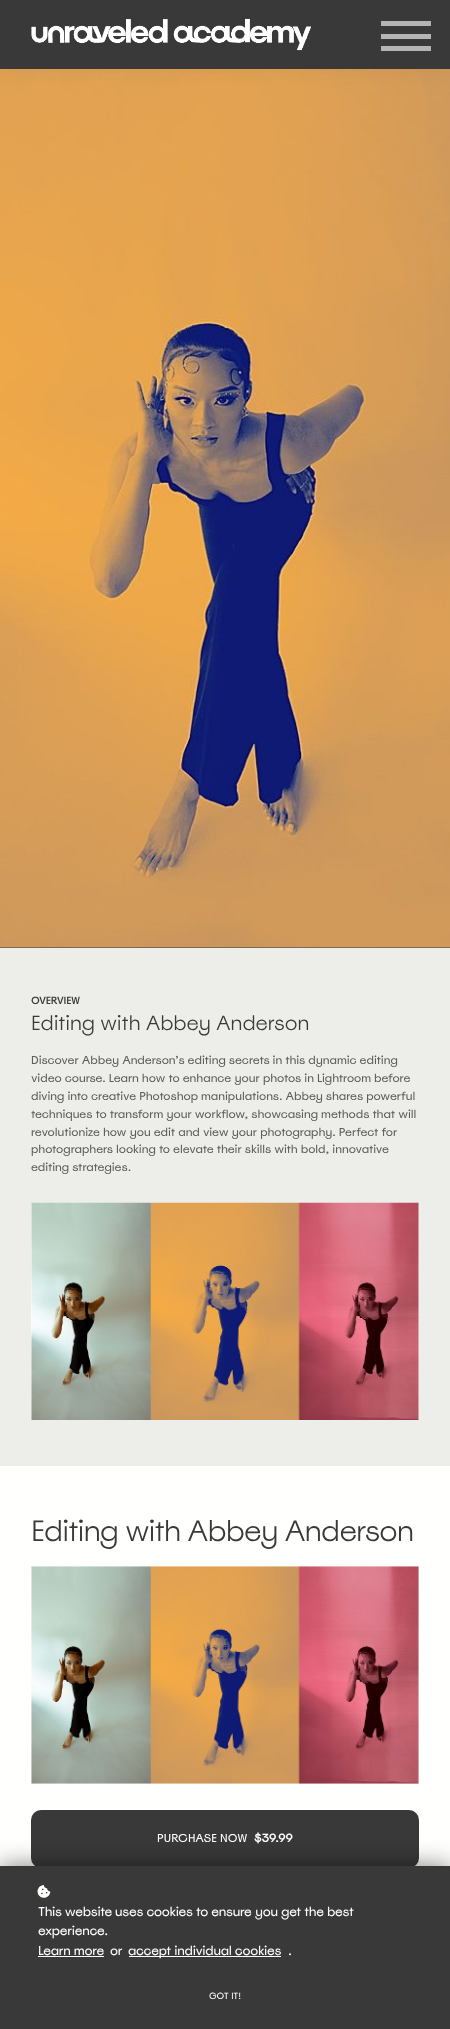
<!DOCTYPE html>
<meta charset="utf-8">
<style>body { margin: 0 } canvas { display: block }</style>
<canvas id="canvas" width="450" height="2029"></canvas>
<img id="img1" src="img_02.png" hidden>
<img id="img2" src="img_01.png" hidden>
<img id="img3" src="img_03.png" hidden>
<img id="img4" src="img_04.png" hidden>
<img id="img5" src="img_05.png" hidden>
<script>
window.onload = function () {
	const canvas = document.getElementById("canvas");
	const ctx = canvas.getContext("2d");
	ctx.miterLimit = 4;
	ctx.fontKerning = "normal";
	function txt(s, x, y) {
		ctx.fillText(s, x, y);
	}
	function fill(x, y, w, h) {
		ctx.fillRect(x, y, w, h);
	}
	function round(x, y, w, h, r) {
		ctx.beginPath();
		ctx.roundRect(x, y, w, h, r);
		ctx.fill();
	}
	function img(id, x, y, w, h) {
		ctx.drawImage(document.getElementById(id), x, y, w, h);
	}

	ctx.fillStyle = "#FFFFFE";
	fill(0, 0, 450, 2029);
	ctx.fillStyle = "#393939";
	fill(0, 947, 450, 1);
	img("img1", 0, 69, 450, 879);
	ctx.fillStyle = "rgba(0, 0, 0, 0.05)";
	ctx.filter = "blur(9.5px)";
	ctx.beginPath();
	ctx.rect(0, 0, 450, 69);
	ctx.fill();
	ctx.filter = "none";
	ctx.fillStyle = "#393939";
	fill(0, 0, 450, 69);
	img("img2", 31, 18, 280, 33);
	ctx.fillStyle = "#B4B4B4";
	fill(381, 46, 50, 5);
	fill(381, 21, 50, 5);
	fill(381, 34, 50, 5);
	ctx.fillStyle = "#EDEDE9";
	fill(0, 948, 450, 518);
	ctx.fillStyle = "#FFFFFF";
	fill(31, 1203, 388, 217);
	img("img3", 31, 1202, 388, 218);
	img("img4", 31, 1566, 388, 218);
	ctx.fillStyle = "#393939";
	round(31, 1810, 388, 58, 10);
	ctx.fillStyle = "rgba(0, 0, 0, 0.5)";
	ctx.filter = "blur(12.5px)";
	ctx.beginPath();
	ctx.rect(0, 1866, 450, 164);
	ctx.fill();
	ctx.filter = "none";
	ctx.fillStyle = "#393939";
	fill(0, 1866, 450, 163);
	img("img5", 37, 1885, 14, 13);
	ctx.fillStyle = "#FFFFFE";
	fill(38, 1956, 66, 1);
	fill(129, 1956, 152, 1);
	ctx.font = "bold 10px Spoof";
	ctx.fillStyle = "#393939";
	txt("OVERVIEW", 31, 1004);
	ctx.font = "300 20.4px Spoof";
	txt("Editing with Abbey Anderson", 31, 1030);
	ctx.font = "11.45px Spoof";
	ctx.fillStyle = "#5D5D5C";
	txt("Discover Abbey Anderson’s editing secrets in this dynamic editing", 31, 1064);
	txt("video course. Learn how to enhance your photos in Lightroom before", 31, 1082);
	txt("diving into creative Photoshop manipulations. Abbey shares powerful", 31, 1100);
	txt("techniques to transform your workflow, showcasing methods that will", 31, 1118);
	txt("revolutionize how you edit and view your photography. Perfect for", 31, 1136);
	txt("photographers looking to elevate their skills with bold, innovative", 31, 1153);
	txt("editing strategies.", 31, 1171);
	ctx.letterSpacing = "-0.65px";
	ctx.font = "300 29.3px Spoof";
	ctx.fillStyle = "#393939";
	txt("Editing with Abbey Anderson", 31, 1541);
	ctx.letterSpacing = "0px";
	ctx.font = "11.45px Spoof";
	ctx.fillStyle = "#FFFFFE";
	txt("PURCHASE NOW", 157, 1842);
	ctx.font = "bold 11.45px Spoof";
	txt("$39.99", 254, 1842);
	ctx.letterSpacing = "-0.2px";
	ctx.font = "12.75px Spoof";
	txt("This website uses cookies to ensure you get the best", 38, 1916);
	txt("experience.", 38, 1935);
	txt("Learn more", 38, 1955);
	txt("or", 110, 1955);
	txt("accept individual cookies", 128, 1955);
	txt(".", 288, 1955);
	ctx.letterSpacing = "0px";
	ctx.font = "9px Spoof";
	txt("GOT IT!", 209, 1999);
};
</script>
